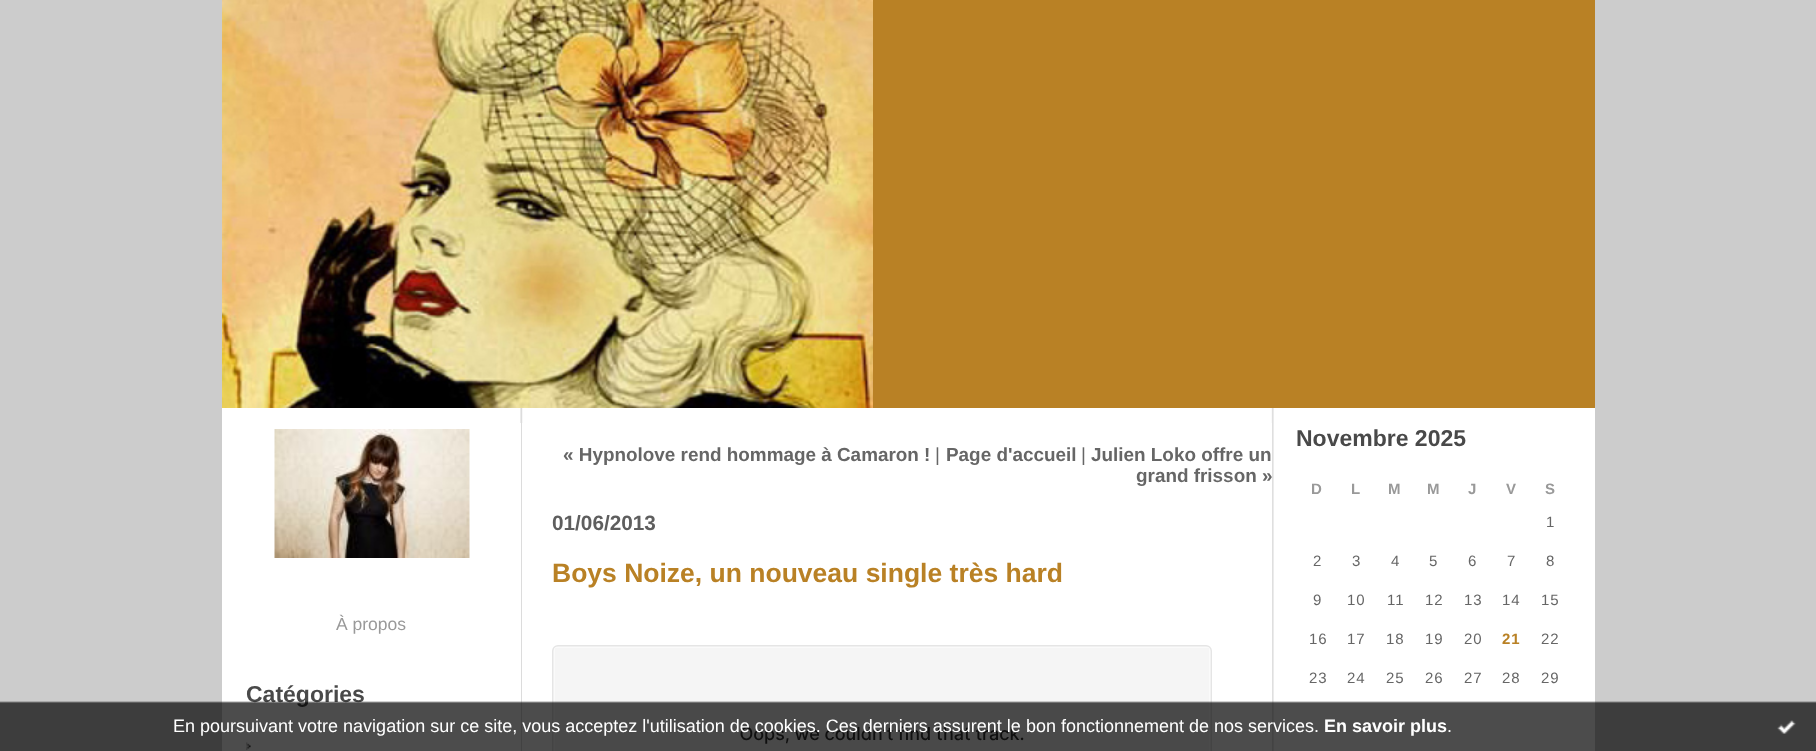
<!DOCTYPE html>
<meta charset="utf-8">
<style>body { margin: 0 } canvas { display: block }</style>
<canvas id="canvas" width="1816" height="751"></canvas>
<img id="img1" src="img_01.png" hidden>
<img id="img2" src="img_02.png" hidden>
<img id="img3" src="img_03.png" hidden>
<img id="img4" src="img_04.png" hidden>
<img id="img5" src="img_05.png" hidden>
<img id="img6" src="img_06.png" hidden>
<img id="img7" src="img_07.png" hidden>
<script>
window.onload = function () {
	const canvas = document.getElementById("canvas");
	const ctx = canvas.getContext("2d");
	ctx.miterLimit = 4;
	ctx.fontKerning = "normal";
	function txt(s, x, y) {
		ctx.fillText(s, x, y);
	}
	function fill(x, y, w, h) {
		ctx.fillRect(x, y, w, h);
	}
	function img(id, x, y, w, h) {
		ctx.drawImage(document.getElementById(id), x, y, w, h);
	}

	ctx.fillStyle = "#CCCCCC";
	fill(0, 0, 1816, 751);
	ctx.fillStyle = "#FFFFFF";
	fill(222, 408, 1373, 343);
	img("img1", 520, 408, 754, 343);
	ctx.fillStyle = "#B98125";
	fill(873, 0, 722, 408);
	img("img2", 222, 0, 651, 408);
	ctx.fillStyle = "#FFFFFF";
	fill(522, 423, 750, 328);
	img("img3", 552, 645, 660, 106);
	fill(520, 423, 1, 328);
	img("img4", 274, 429, 196, 129);
	img("img5", 246, 742, 5, 8);
	ctx.font = "bold 18.9px Liberation Sans";
	ctx.fillStyle = "#666666";
	txt("« Hypnolove rend hommage à Camaron !", 563, 461);
	ctx.font = "18.9px Liberation Sans";
	txt("|", 935, 461);
	ctx.font = "bold 18.9px Liberation Sans";
	txt("Page d'accueil", 946, 461);
	ctx.font = "18.9px Liberation Sans";
	txt("|", 1081, 461);
	ctx.font = "bold 18.9px Liberation Sans";
	txt("Julien Loko offre un", 1091, 461);
	txt("grand frisson »", 1136, 482);
	ctx.font = "bold 20.75px Liberation Sans";
	ctx.fillStyle = "#5E5E5E";
	txt("01/06/2013", 552, 530);
	ctx.font = "bold 26.5px Liberation Sans";
	ctx.fillStyle = "#B98125";
	txt("Boys Noize, un nouveau single très hard", 552, 582);
	ctx.font = "bold 23px Liberation Sans";
	ctx.fillStyle = "#494949";
	txt("Novembre 2025", 1296, 446);
	ctx.letterSpacing = "2px";
	ctx.font = "bold 15px Liberation Sans";
	ctx.fillStyle = "#999999";
	txt("D", 1311, 494);
	txt("L", 1351, 494);
	txt("M", 1388, 494);
	txt("M", 1427, 494);
	txt("J", 1468, 494);
	txt("V", 1506, 494);
	txt("S", 1545, 494);
	ctx.letterSpacing = "1px";
	ctx.font = "15px Liberation Sans";
	ctx.fillStyle = "#666666";
	txt("1", 1546, 527);
	txt("2", 1313, 566);
	txt("3", 1352, 566);
	txt("4", 1391, 566);
	txt("5", 1429, 566);
	txt("6", 1468, 566);
	txt("7", 1507, 566);
	txt("8", 1546, 566);
	txt("9", 1313, 605);
	txt("10", 1347, 605);
	txt("11", 1387, 605);
	txt("12", 1425, 605);
	txt("13", 1464, 605);
	txt("14", 1502, 605);
	txt("15", 1541, 605);
	txt("16", 1309, 644);
	txt("17", 1347, 644);
	txt("18", 1386, 644);
	txt("19", 1425, 644);
	txt("20", 1464, 644);
	ctx.font = "bold 15px Liberation Sans";
	ctx.fillStyle = "#B98125";
	txt("21", 1502, 644);
	ctx.font = "15px Liberation Sans";
	ctx.fillStyle = "#666666";
	txt("22", 1541, 644);
	txt("23", 1309, 683);
	txt("24", 1347, 683);
	txt("25", 1386, 683);
	txt("26", 1425, 683);
	txt("27", 1464, 683);
	txt("28", 1502, 683);
	txt("29", 1541, 683);
	ctx.letterSpacing = "0px";
	ctx.font = "17.5px Liberation Sans";
	ctx.fillStyle = "#999999";
	txt("À propos", 336, 630);
	ctx.font = "bold 23px Liberation Sans";
	ctx.fillStyle = "#494949";
	txt("Catégories", 246, 702);
	img("img6", 0, 701, 1816, 50);
	ctx.font = "18px Liberation Sans";
	ctx.fillStyle = "#FFFFFF";
	txt("En poursuivant votre navigation sur ce site, vous acceptez l'utilisation de cookies. Ces derniers assurent le bon fonctionnement de nos services.", 173, 732);
	ctx.font = "bold 18px Liberation Sans";
	txt("En savoir plus", 1324, 732);
	ctx.font = "18px Liberation Sans";
	txt(".", 1447, 732);
	img("img7", 1777, 720, 19, 14);
};
</script>
